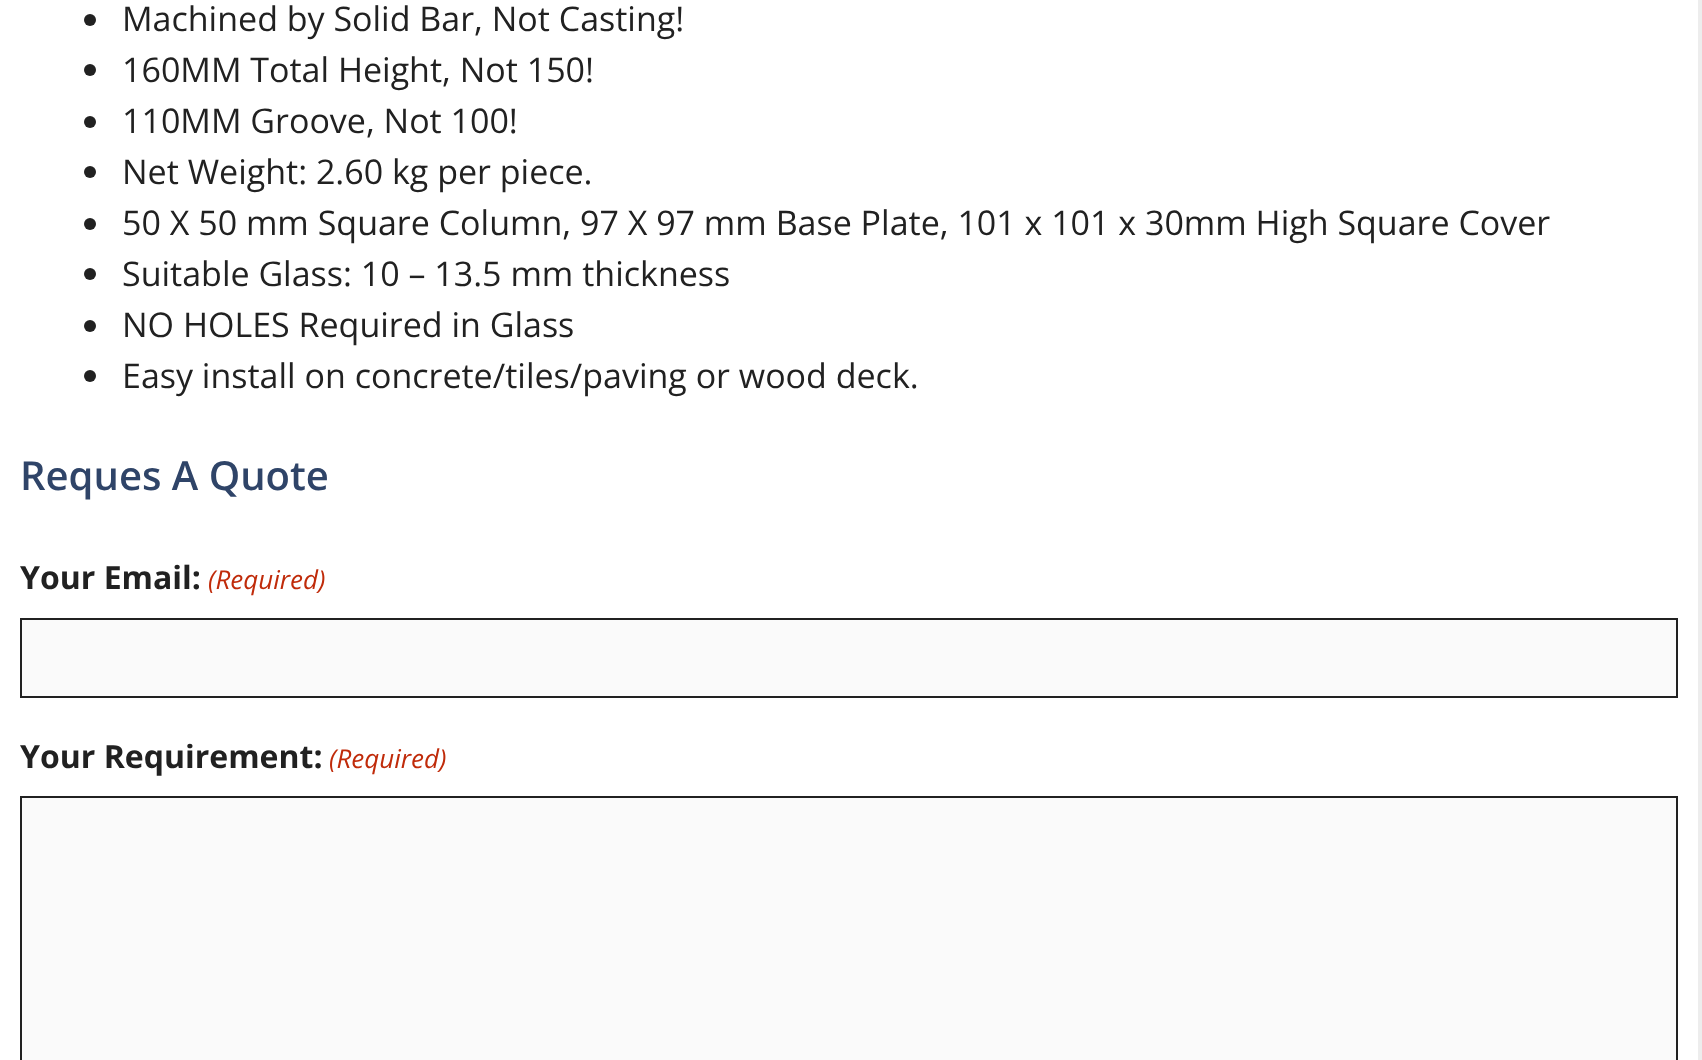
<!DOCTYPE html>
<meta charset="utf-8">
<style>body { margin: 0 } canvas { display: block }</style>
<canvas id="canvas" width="1702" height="1060"></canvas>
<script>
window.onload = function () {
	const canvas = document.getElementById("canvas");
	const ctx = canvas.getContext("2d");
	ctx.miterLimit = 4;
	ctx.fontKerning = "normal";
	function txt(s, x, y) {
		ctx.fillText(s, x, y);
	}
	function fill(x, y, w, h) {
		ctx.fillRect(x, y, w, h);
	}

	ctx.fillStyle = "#FFFFFF";
	fill(0, 0, 1702, 1060);
	ctx.fillStyle = "#EDEDED";
	ctx.beginPath();
	ctx.moveTo(1702, -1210);
	ctx.lineTo(1702, 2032);
	ctx.lineTo(1698, 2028);
	ctx.lineTo(1698, -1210);
	ctx.closePath();
	ctx.fill();
	ctx.fillStyle = "#212121";
	ctx.beginPath();
	ctx.arc(90, 20, 6, 0, Math.PI * 2);
	ctx.fill();
	ctx.beginPath();
	ctx.arc(90, 70, 6, 0, Math.PI * 2);
	ctx.fill();
	ctx.beginPath();
	ctx.arc(90, 122, 6, 0, Math.PI * 2);
	ctx.fill();
	ctx.beginPath();
	ctx.arc(90, 172, 6, 0, Math.PI * 2);
	ctx.fill();
	ctx.beginPath();
	ctx.arc(90, 224, 6, 0, Math.PI * 2);
	ctx.fill();
	ctx.beginPath();
	ctx.arc(90, 274, 6, 0, Math.PI * 2);
	ctx.fill();
	ctx.beginPath();
	ctx.arc(90, 326, 6, 0, Math.PI * 2);
	ctx.fill();
	ctx.beginPath();
	ctx.arc(90, 376, 6, 0, Math.PI * 2);
	ctx.fill();
	ctx.fillStyle = "#FAFAFA";
	ctx.beginPath();
	ctx.rect(21, 619, 1656, 78);
	ctx.fill();
	ctx.strokeStyle = "#212121";
	ctx.lineWidth = 2;
	ctx.stroke();
	ctx.beginPath();
	ctx.rect(21, 797, 1656, 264);
	ctx.fill();
	ctx.stroke();
	ctx.font = "34px Open Sans";
	ctx.fillStyle = "#212121";
	txt("Machined by Solid Bar, Not Casting!", 122, 31);
	txt("160MM Total Height, Not 150!", 122, 82);
	txt("110MM Groove, Not 100!", 122, 133);
	txt("Net Weight: 2.60 kg per piece.", 122, 184);
	txt("50 X 50 mm Square Column, 97 X 97 mm Base Plate, 101 x 101 x 30mm High Square Cover", 122, 235);
	txt("Suitable Glass: 10 – 13.5 mm thickness", 122, 286);
	txt("NO HOLES Required in Glass", 122, 337);
	txt("Easy install on concrete/tiles/paving or wood deck.", 122, 388);
	ctx.font = "600 40px Open Sans";
	ctx.fillStyle = "#2F4468";
	txt("Reques A Quote", 20, 490);
	ctx.font = "bold 32px Open Sans";
	ctx.fillStyle = "#212121";
	txt("Your Email:", 20, 589);
	ctx.font = "italic 26px Open Sans";
	ctx.fillStyle = "#C02B0A";
	txt("(Required)", 208, 589);
	ctx.font = "bold 32px Open Sans";
	ctx.fillStyle = "#212121";
	txt("Your Requirement:", 20, 768);
	ctx.font = "italic 26px Open Sans";
	ctx.fillStyle = "#C02B0A";
	txt("(Required)", 329, 768);
};
</script>
